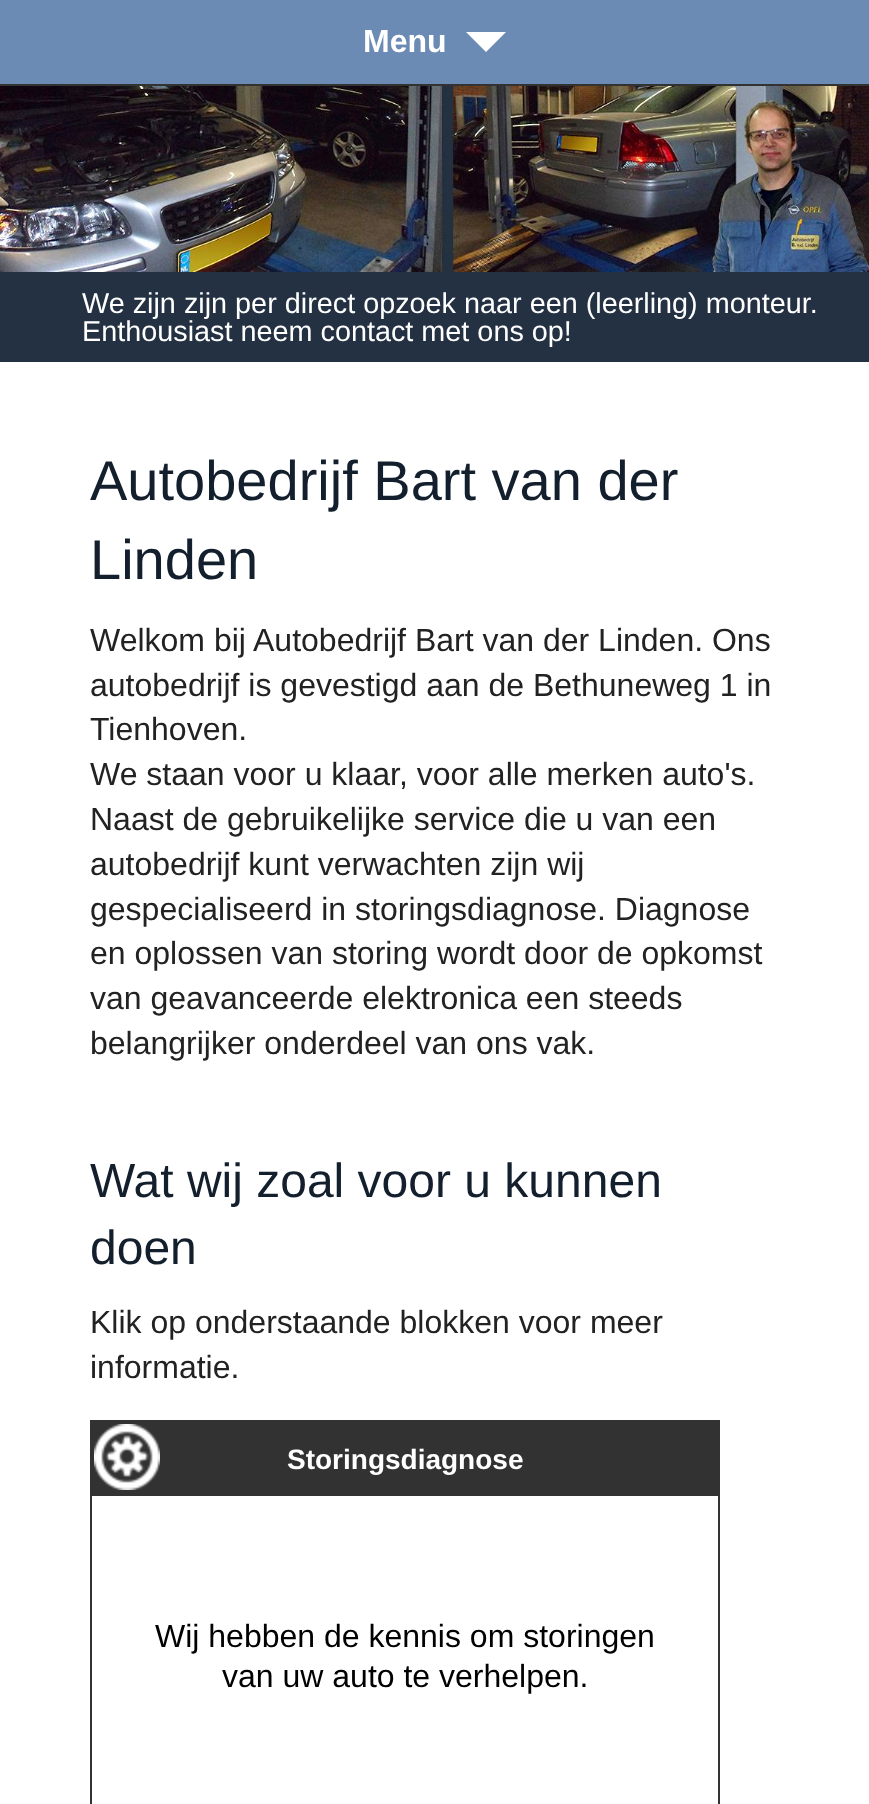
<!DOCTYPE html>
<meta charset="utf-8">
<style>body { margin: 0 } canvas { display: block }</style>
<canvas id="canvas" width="869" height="1804"></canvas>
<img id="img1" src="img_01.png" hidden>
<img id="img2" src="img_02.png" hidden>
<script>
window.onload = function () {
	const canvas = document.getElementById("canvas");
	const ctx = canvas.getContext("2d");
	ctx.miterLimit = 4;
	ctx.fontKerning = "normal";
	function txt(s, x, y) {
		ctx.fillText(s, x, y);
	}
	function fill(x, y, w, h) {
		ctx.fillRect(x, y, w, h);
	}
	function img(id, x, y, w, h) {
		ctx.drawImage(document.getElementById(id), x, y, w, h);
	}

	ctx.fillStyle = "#323232";
	fill(0, 0, 869, 1804);
	ctx.fillStyle = "#6B8BB5";
	fill(0, 0, 869, 84);
	ctx.fillStyle = "#FFFFFF";
	ctx.beginPath();
	ctx.moveTo(466, 32);
	ctx.lineTo(506, 32);
	ctx.lineTo(486, 52);
	ctx.closePath();
	ctx.fill();
	img("img1", 0, 86, 869, 186);
	ctx.fillStyle = "#233142";
	fill(0, 272, 869, 90);
	ctx.fillStyle = "#FFFFFF";
	fill(0, 362, 869, 1442);
	ctx.fillStyle = "#323232";
	fill(90, 1420, 630, 74);
	img("img2", 94, 1424, 66, 66);
	ctx.strokeStyle = "#323232";
	ctx.lineWidth = 2;
	ctx.strokeRect(91, 1495, 628, 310);
	ctx.font = "bold 32px Liberation Sans";
	ctx.fillStyle = "#FFFFFF";
	txt("Menu", 363, 52);
	ctx.font = "28.8px Liberation Sans";
	txt("We zijn zijn per direct opzoek naar een (leerling) monteur.", 82, 313);
	txt("Enthousiast neem contact met ons op!", 82, 341);
	ctx.font = "56px Liberation Sans";
	ctx.fillStyle = "#131F2D";
	txt("Autobedrijf Bart van der", 90, 500);
	txt("Linden", 90, 579);
	ctx.font = "32px Liberation Sans";
	ctx.fillStyle = "#222222";
	txt("Welkom bij Autobedrijf Bart van der Linden. Ons", 90, 651);
	txt("autobedrijf is gevestigd aan de Bethuneweg 1 in", 90, 696);
	txt("Tienhoven.", 90, 740);
	txt("We staan voor u klaar, voor alle merken auto's.", 90, 785);
	txt("Naast de gebruikelijke service die u van een", 90, 830);
	txt("autobedrijf kunt verwachten zijn wij", 90, 875);
	txt("gespecialiseerd in storingsdiagnose. Diagnose", 90, 920);
	txt("en oplossen van storing wordt door de opkomst", 90, 964);
	txt("van geavanceerde elektronica een steeds", 90, 1009);
	txt("belangrijker onderdeel van ons vak.", 90, 1054);
	ctx.font = "48px Liberation Sans";
	ctx.fillStyle = "#131F2D";
	txt("Wat wij zoal voor u kunnen", 90, 1197);
	txt("doen", 90, 1264);
	ctx.font = "32px Liberation Sans";
	ctx.fillStyle = "#222222";
	txt("Klik op onderstaande blokken voor meer", 90, 1333);
	txt("informatie.", 90, 1378);
	ctx.font = "bold 28px Liberation Sans";
	ctx.fillStyle = "#FFFFFF";
	txt("Storingsdiagnose", 287, 1469);
	ctx.font = "32px Liberation Sans";
	ctx.fillStyle = "#000000";
	txt("Wij hebben de kennis om storingen", 155, 1647);
	txt("van uw auto te verhelpen.", 222, 1687);
};
</script>
